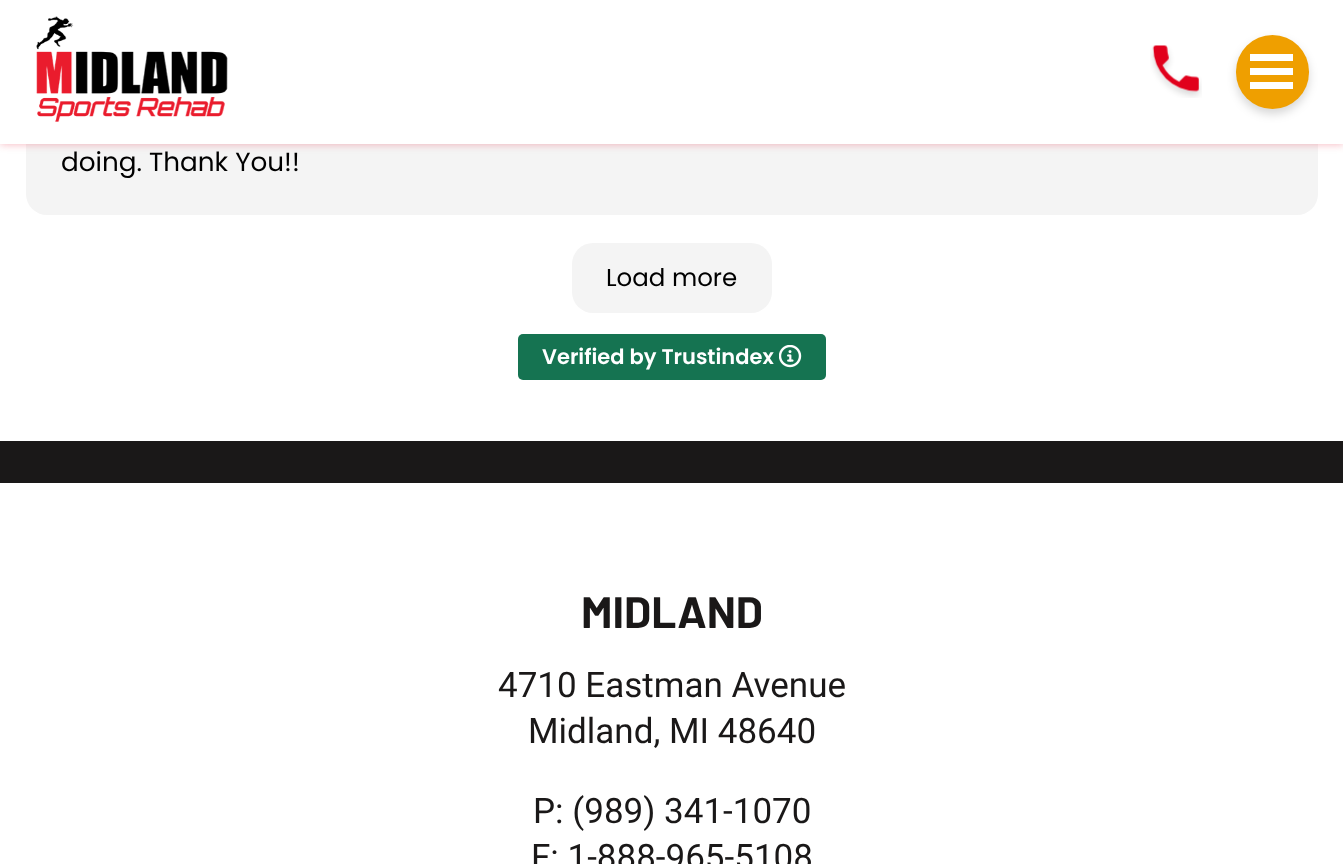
<!DOCTYPE html>
<meta charset="utf-8">
<style>body { margin: 0 } canvas { display: block }</style>
<canvas id="canvas" width="1343" height="864"></canvas>
<img id="img1" src="img_01.png" hidden>
<img id="img2" src="img_02.png" hidden>
<img id="img3" src="img_03.png" hidden>
<script>
window.onload = function () {
	const canvas = document.getElementById("canvas");
	const ctx = canvas.getContext("2d");
	ctx.miterLimit = 4;
	ctx.fontKerning = "normal";
	function txt(s, x, y) {
		ctx.fillText(s, x, y);
	}
	function fill(x, y, w, h) {
		ctx.fillRect(x, y, w, h);
	}
	function round(x, y, w, h, r) {
		ctx.beginPath();
		ctx.roundRect(x, y, w, h, r);
		ctx.fill();
	}
	function img(id, x, y, w, h) {
		ctx.drawImage(document.getElementById(id), x, y, w, h);
	}

	ctx.fillStyle = "#FFFFFF";
	fill(0, 0, 1343, 864);
	ctx.fillStyle = "#F4F4F4";
	round(26, -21, 1292, 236, 21);
	ctx.fillStyle = "rgba(225, 0, 30, 0.3)";
	ctx.filter = "blur(4.5px)";
	ctx.beginPath();
	ctx.rect(0, 0, 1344, 144);
	ctx.fill();
	ctx.filter = "none";
	ctx.fillStyle = "#FFFFFF";
	fill(0, 0, 1343, 144);
	img("img1", 36, 16, 192, 106);
	img("img2", 1150, 45, 52, 53);
	ctx.fillStyle = "rgba(0, 0, 0, 0.16)";
	ctx.filter = "blur(5px)";
	ctx.beginPath();
	ctx.roundRect(1236, 40, 73, 74, 36.5);
	ctx.fill();
	ctx.filter = "none";
	ctx.fillStyle = "#EF9F00";
	round(1236, 35, 73, 74, 36.5);
	ctx.fillStyle = "#FFFFFF";
	fill(1250, 54, 43, 7);
	fill(1250, 68, 43, 7);
	fill(1250, 82, 43, 7);
	ctx.fillStyle = "#F4F4F4";
	round(572, 243, 200, 70, 21);
	ctx.fillStyle = "#157351";
	round(518, 334, 308, 46, 5);
	img("img3", 779, 345, 23, 23);
	ctx.fillStyle = "#1A1818";
	fill(0, 441, 1343, 42);
	ctx.font = "26.25px Poppins";
	ctx.fillStyle = "#000000";
	txt("doing. Thank You!!", 61, 171);
	ctx.font = "24.5px Poppins";
	txt("Load more", 606, 286);
	ctx.font = "600 21px Poppins";
	ctx.fillStyle = "#FFFFFF";
	txt("Verified by Trustindex", 542, 364);
	ctx.font = "bold 44px Barlow";
	ctx.fillStyle = "#1A1818";
	txt("MIDLAND", 581, 628);
	ctx.font = "35px Roboto";
	txt("4710 Eastman Avenue", 498, 697);
	txt("Midland, MI 48640", 528, 743);
	txt("P: (989) 341-1070", 533, 823);
	txt("F: 1-888-965-5108", 531, 869);
};
</script>
